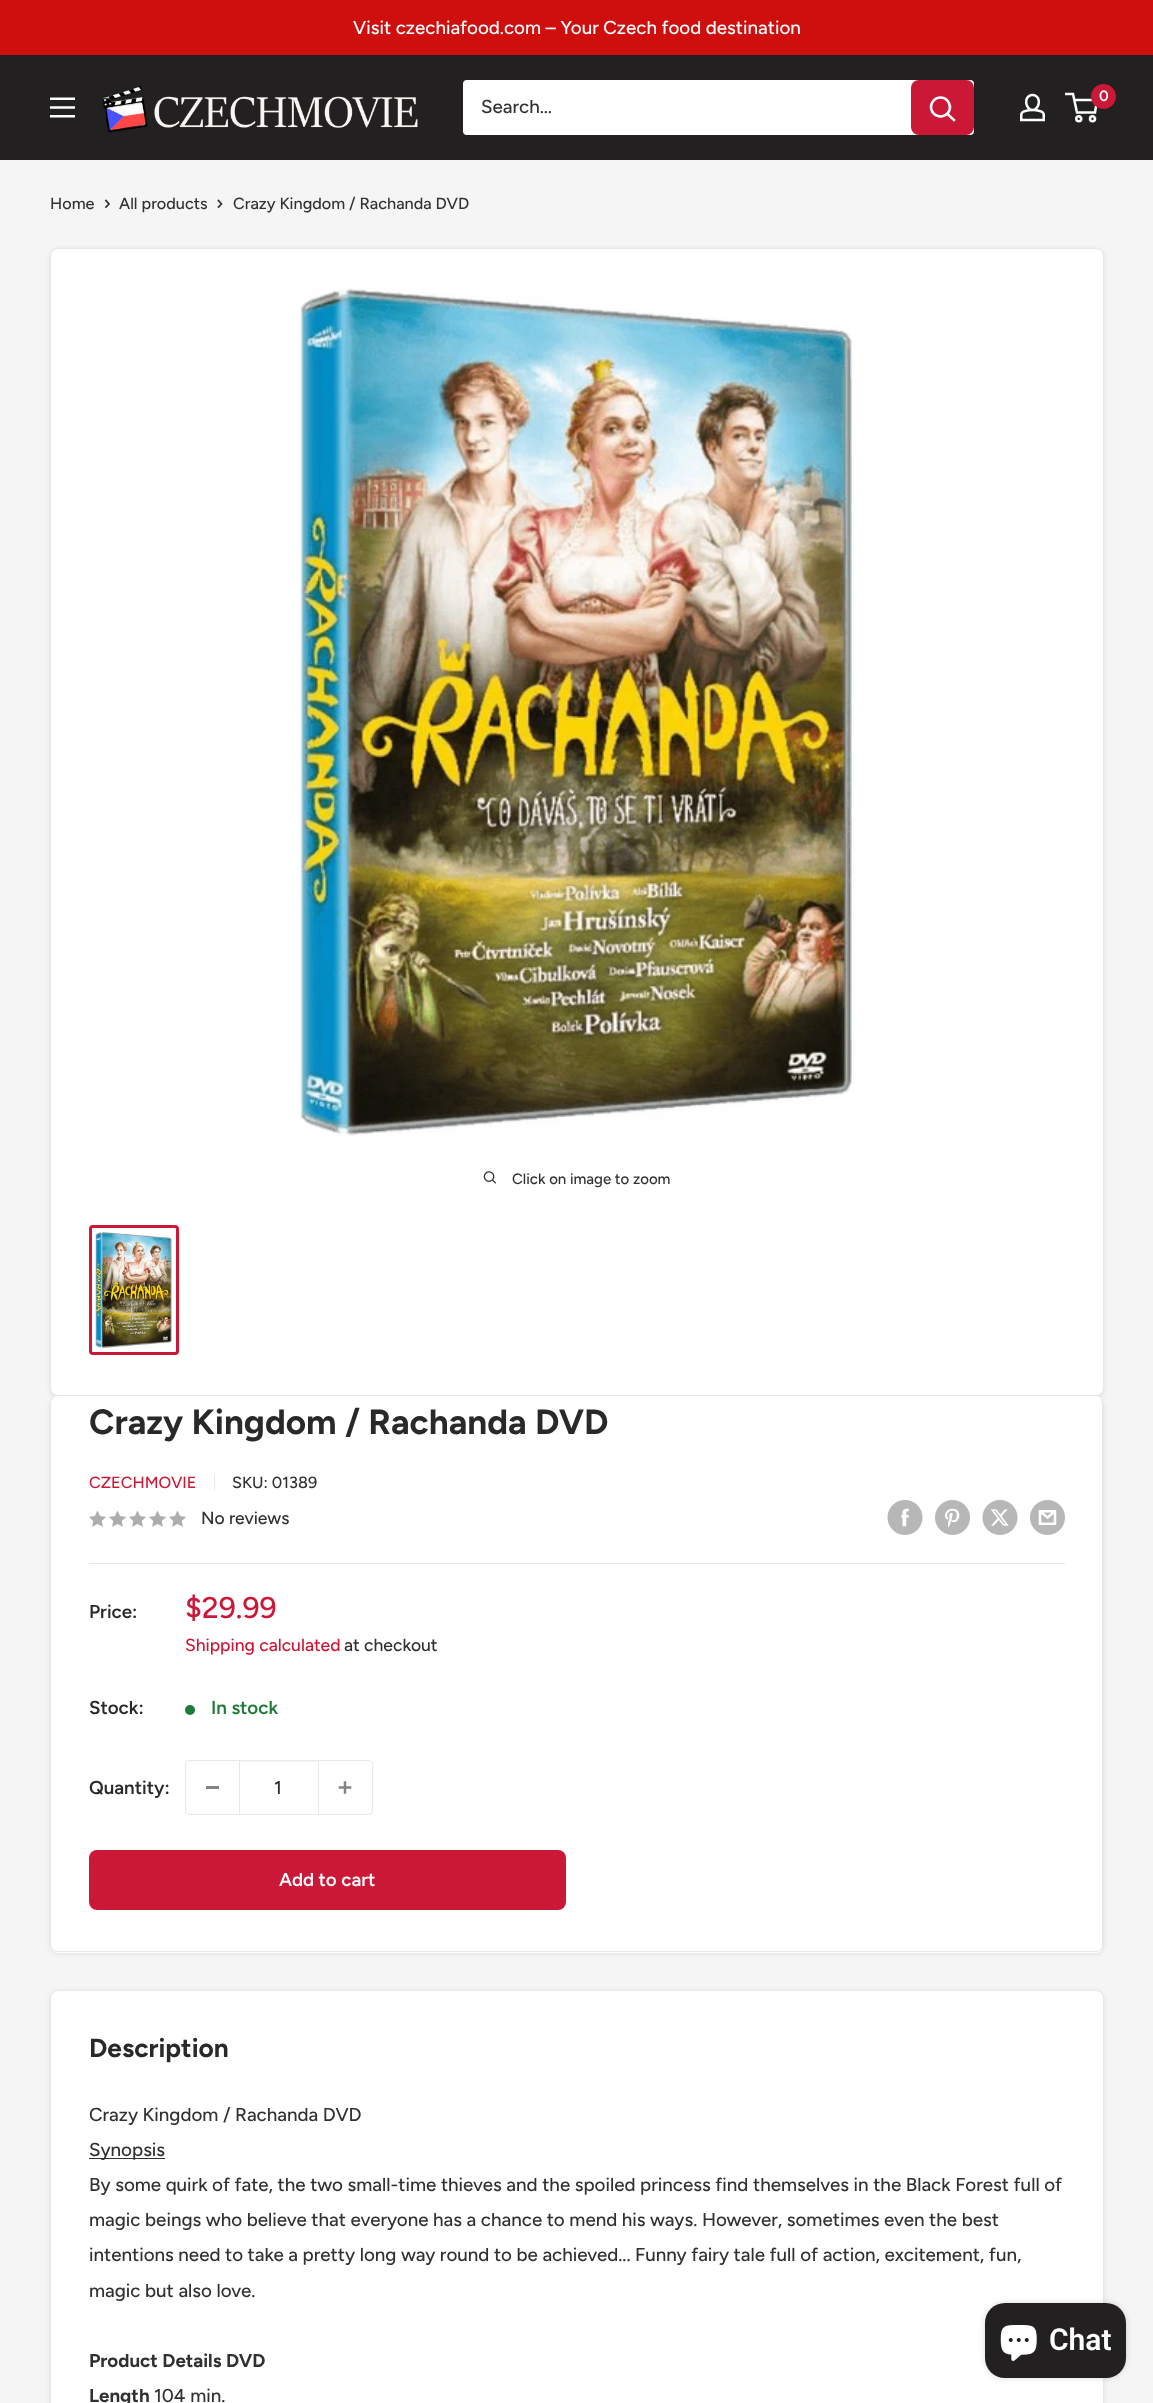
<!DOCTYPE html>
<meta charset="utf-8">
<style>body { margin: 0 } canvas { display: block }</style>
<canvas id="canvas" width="1153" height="2403"></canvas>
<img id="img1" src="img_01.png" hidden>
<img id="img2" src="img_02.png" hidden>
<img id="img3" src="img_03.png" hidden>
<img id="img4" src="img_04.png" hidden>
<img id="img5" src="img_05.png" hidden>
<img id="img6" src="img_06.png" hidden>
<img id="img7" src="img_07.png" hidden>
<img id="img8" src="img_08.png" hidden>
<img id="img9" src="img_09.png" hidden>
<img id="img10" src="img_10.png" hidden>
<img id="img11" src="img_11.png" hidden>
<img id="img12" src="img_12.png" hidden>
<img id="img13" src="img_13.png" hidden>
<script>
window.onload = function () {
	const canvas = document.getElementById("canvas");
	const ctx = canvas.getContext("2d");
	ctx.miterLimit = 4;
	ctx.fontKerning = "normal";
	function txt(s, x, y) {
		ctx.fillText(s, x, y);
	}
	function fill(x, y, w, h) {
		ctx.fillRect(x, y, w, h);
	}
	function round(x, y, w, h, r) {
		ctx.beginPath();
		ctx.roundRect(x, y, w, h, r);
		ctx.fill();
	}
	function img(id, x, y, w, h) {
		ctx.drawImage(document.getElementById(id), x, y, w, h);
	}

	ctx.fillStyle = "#F5F5F5";
	fill(0, 0, 1153, 2403);
	ctx.fillStyle = "#CF0E0E";
	fill(0, 0, 1153, 55);
	ctx.fillStyle = "#222021";
	fill(0, 55, 1153, 105);
	img("img1", 50, 97, 25, 21);
	img("img2", 101, 86, 317, 47);
	ctx.fillStyle = "#FFFFFF";
	round(463, 80, 511, 55, 4);
	ctx.fillStyle = "#CB1836";
	round(911, 80, 63, 55, 8);
	ctx.beginPath();
	ctx.moveTo(954, 120);
	ctx.lineTo(947.5, 114);
	ctx.strokeStyle = "#FFFFFF";
	ctx.lineWidth = 2.5;
	ctx.lineCap = "square";
	ctx.stroke();
	ctx.beginPath();
	ctx.arc(940.5, 107, 9.5, 0, Math.PI * 2);
	ctx.stroke();
	img("img3", 1020, 93, 25, 29);
	ctx.beginPath();
	ctx.arc(1078.8, 118.8, 2.5, 0, Math.PI * 2);
	ctx.stroke();
	ctx.beginPath();
	ctx.arc(1092.5, 118.8, 2.5, 0, Math.PI * 2);
	ctx.stroke();
	ctx.beginPath();
	ctx.moveTo(1074, 100);
	ctx.lineTo(1097, 100);
	ctx.lineTo(1095, 112.5);
	ctx.lineTo(1077, 112.5);
	ctx.lineTo(1073, 94);
	ctx.lineTo(1065, 94);
	ctx.lineCap = "butt";
	ctx.stroke();
	ctx.beginPath();
	ctx.arc(1103.5, 96.5, 12.5, 0, Math.PI * 2);
	ctx.fill();
	ctx.beginPath();
	ctx.moveTo(106, 200.5);
	ctx.lineTo(109, 204);
	ctx.lineTo(106, 207);
	ctx.strokeStyle = "#313131";
	ctx.lineWidth = 1.7;
	ctx.lineCap = "square";
	ctx.stroke();
	ctx.beginPath();
	ctx.moveTo(218.5, 200.5);
	ctx.lineTo(221.5, 204);
	ctx.lineTo(218.5, 207);
	ctx.stroke();
	ctx.fillStyle = "rgba(0, 0, 0, 0.08)";
	ctx.filter = "blur(2.5px)";
	ctx.beginPath();
	ctx.roundRect(50, 249, 1054, 1149, 8);
	ctx.fill();
	ctx.filter = "none";
	ctx.fillStyle = "#FFFFFF";
	ctx.beginPath();
	ctx.roundRect(50.5, 248.5, 1053, 1147, 7.5);
	ctx.fill();
	ctx.strokeStyle = "#E8E8E8";
	ctx.lineWidth = 1;
	ctx.stroke();
	img("img4", 298, 287, 557, 849);
	img("img5", 483, 1171, 14, 13);
	ctx.beginPath();
	ctx.roundRect(90.5, 1226.5, 87, 127, 2.5);
	ctx.strokeStyle = "#CB1836";
	ctx.lineWidth = 3;
	ctx.stroke();
	img("img6", 95, 1232, 77, 116);
	ctx.fillStyle = "rgba(0, 0, 0, 0.08)";
	ctx.filter = "blur(2.5px)";
	ctx.beginPath();
	ctx.roundRect(50, 1398, 1054, 556, 8);
	ctx.fill();
	ctx.filter = "none";
	ctx.fillStyle = "#FFFFFF";
	round(50, 1396, 1054, 557, 8);
	ctx.fillStyle = "#E8E8E8";
	ctx.beginPath();
	ctx.moveTo(58, 1396);
	ctx.lineTo(1096, 1396);
	ctx.bezierCurveTo(1100, 1396, 1104, 1400, 1104, 1404);
	ctx.lineTo(1104, 1945);
	ctx.bezierCurveTo(1104, 1949, 1100, 1952, 1096, 1952);
	ctx.lineTo(58, 1952);
	ctx.bezierCurveTo(53, 1952, 50, 1949, 50, 1945);
	ctx.lineTo(50, 1404);
	ctx.bezierCurveTo(50, 1400, 53, 1396, 58, 1396);
	ctx.closePath();
	ctx.moveTo(58, 1396);
	ctx.lineTo(1096, 1396);
	ctx.bezierCurveTo(1100, 1396, 1102, 1400, 1102, 1404);
	ctx.lineTo(1102, 1945);
	ctx.bezierCurveTo(1102, 1948, 1100, 1951, 1096, 1951);
	ctx.lineTo(58, 1951);
	ctx.bezierCurveTo(54, 1951, 51, 1948, 51, 1945);
	ctx.lineTo(51, 1404);
	ctx.bezierCurveTo(51, 1400, 54, 1396, 58, 1396);
	ctx.closePath();
	ctx.fill("evenodd");
	fill(214, 1475, 1, 16);
	img("img7", 89, 1510, 17, 17);
	img("img7", 109, 1510, 17, 17);
	img("img7", 129, 1510, 17, 17);
	img("img7", 149, 1510, 17, 17);
	img("img7", 169, 1510, 17, 17);
	img("img8", 887, 1500, 36, 35);
	img("img9", 935, 1500, 35, 35);
	img("img10", 982, 1500, 36, 35);
	img("img11", 1030, 1500, 35, 35);
	fill(89, 1563, 976, 1);
	ctx.fillStyle = "#1C7B36";
	ctx.beginPath();
	ctx.arc(190, 1710, 5, 0, Math.PI * 2);
	ctx.fill();
	ctx.beginPath();
	ctx.roundRect(185.5, 1760.5, 187, 54, 3.5);
	ctx.strokeStyle = "#E8E8E8";
	ctx.lineWidth = 1;
	ctx.stroke();
	ctx.fillStyle = "#838383";
	fill(206, 1786, 13, 3);
	ctx.fillStyle = "#F6F6F6";
	fill(240, 1761, 78, 1);
	ctx.fillStyle = "#E8E8E8";
	fill(318, 1761, 1, 53);
	fill(239, 1761, 1, 53);
	img("img12", 338, 1781, 14, 13);
	ctx.fillStyle = "#CB1836";
	round(89, 1850, 477, 60, 8);
	ctx.fillStyle = "rgba(0, 0, 0, 0.08)";
	ctx.filter = "blur(2.5px)";
	ctx.beginPath();
	ctx.roundRect(50, 1991, 1054, 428, 8);
	ctx.fill();
	ctx.filter = "none";
	ctx.fillStyle = "#FFFFFF";
	ctx.beginPath();
	ctx.roundRect(50.5, 1990.5, 1053, 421, 7.5);
	ctx.fill();
	ctx.stroke();
	ctx.fillStyle = "#313131";
	fill(89, 2158, 76, 1);
	ctx.fillStyle = "rgba(0, 0, 0, 0.15)";
	ctx.filter = "blur(3px)";
	ctx.beginPath();
	ctx.roundRect(985, 2303, 141, 75, 20);
	ctx.fill();
	ctx.filter = "none";
	ctx.fillStyle = "#222021";
	round(985, 2303, 141, 75, 20);
	img("img13", 1000, 2325, 37, 36);
	ctx.font = "500 18.75px Figtree";
	ctx.fillStyle = "#FFFFFF";
	txt("Visit czechiafood.com – Your Czech food destination", 353, 34);
	ctx.fillStyle = "#313131";
	txt("Search...", 481, 113);
	ctx.font = "600 15px Figtree";
	ctx.fillStyle = "#FFFFFF";
	txt("0", 1099, 101);
	ctx.font = "500 16.25px Figtree";
	ctx.fillStyle = "#313131";
	txt("Home", 50, 209);
	txt("All products", 119, 209);
	txt("Crazy Kingdom / Rachanda DVD", 233, 209);
	ctx.font = "500 15px Figtree";
	txt("Click on image to zoom", 512, 1184);
	ctx.font = "bold 35px Figtree";
	ctx.fillStyle = "#292929";
	txt("Crazy Kingdom / Rachanda DVD", 89, 1434);
	ctx.font = "500 16.25px Figtree";
	ctx.fillStyle = "#CB1836";
	txt("CZECHMOVIE", 89, 1488);
	ctx.fillStyle = "#313131";
	txt("SKU: 01389", 232, 1488);
	ctx.font = "500 17.5px Figtree";
	txt("No reviews", 201, 1524);
	ctx.font = "600 18.75px Figtree";
	ctx.fillStyle = "#292929";
	txt("Price:", 89, 1618);
	ctx.font = "500 30px Figtree";
	ctx.fillStyle = "#CB1836";
	txt("$29.99", 185, 1618);
	ctx.font = "500 17.5px Figtree";
	txt("Shipping calculated", 185, 1651);
	ctx.fillStyle = "#313131";
	txt("at checkout", 344, 1651);
	ctx.font = "600 18.75px Figtree";
	ctx.fillStyle = "#292929";
	txt("Stock:", 89, 1714);
	ctx.fillStyle = "#1C7B36";
	txt("In stock", 211, 1714);
	ctx.fillStyle = "#292929";
	txt("Quantity:", 89, 1794);
	ctx.font = "500 18.75px Figtree";
	txt("1", 274, 1794);
	ctx.font = "600 18.75px Figtree";
	ctx.fillStyle = "#FFFFFF";
	txt("Add to cart", 279, 1886);
	ctx.font = "bold 26.25px Figtree";
	ctx.fillStyle = "#292929";
	txt("Description", 89, 2057);
	ctx.font = "500 18.75px Figtree";
	ctx.fillStyle = "#313131";
	txt("Crazy Kingdom / Rachanda DVD", 89, 2121);
	txt("Synopsis", 89, 2156);
	txt("By some quirk of fate, the two small-time thieves and the spoiled princess find themselves in the Black Forest full of", 89, 2191);
	txt("magic beings who believe that everyone has a chance to mend his ways. However, sometimes even the best", 89, 2226);
	txt("intentions need to take a pretty long way round to be achieved... Funny fairy tale full of action, excitement, fun,", 89, 2261);
	txt("magic but also love.", 89, 2297);
	ctx.font = "bold 18.75px Figtree";
	txt("Product Details DVD", 89, 2367);
	txt("Length", 89, 2402);
	ctx.font = "500 18.75px Figtree";
	txt("104 min.", 154, 2402);
	ctx.font = "600 30px Roboto";
	ctx.fillStyle = "#FFFFFF";
	txt("Chat", 1049, 2350);
};
</script>
